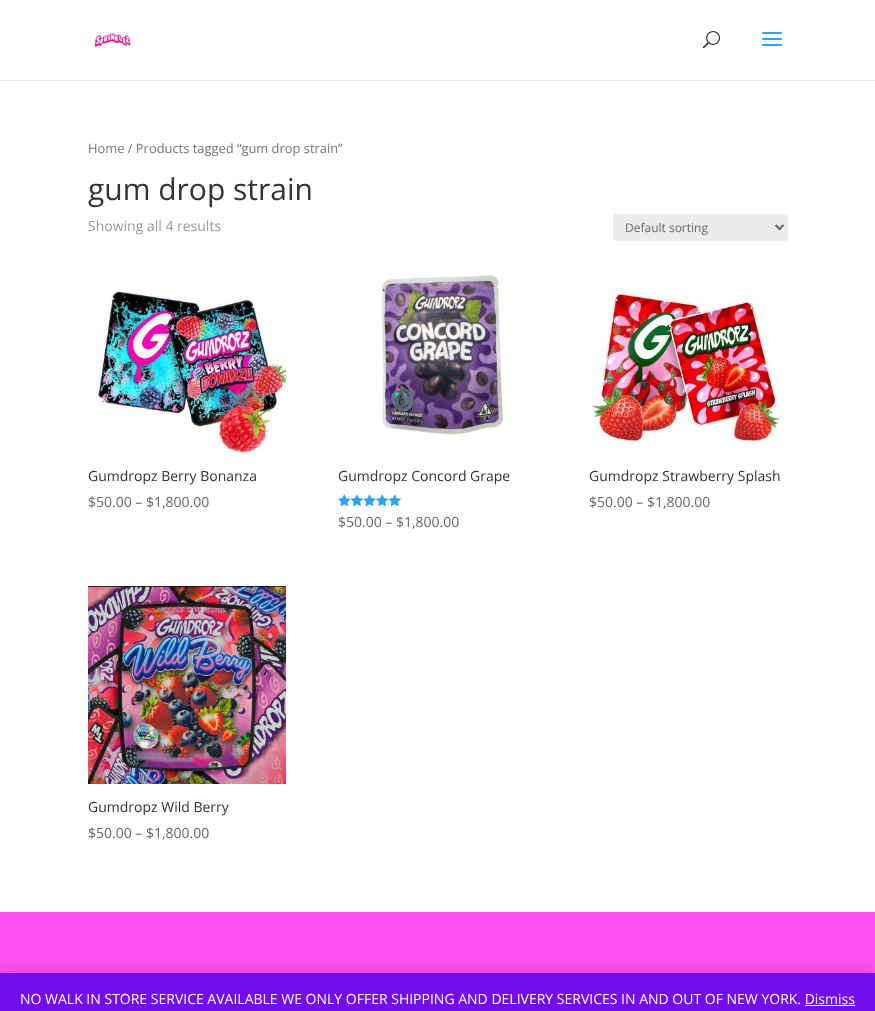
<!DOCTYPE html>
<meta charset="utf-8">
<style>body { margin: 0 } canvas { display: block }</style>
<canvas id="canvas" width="875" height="1011"></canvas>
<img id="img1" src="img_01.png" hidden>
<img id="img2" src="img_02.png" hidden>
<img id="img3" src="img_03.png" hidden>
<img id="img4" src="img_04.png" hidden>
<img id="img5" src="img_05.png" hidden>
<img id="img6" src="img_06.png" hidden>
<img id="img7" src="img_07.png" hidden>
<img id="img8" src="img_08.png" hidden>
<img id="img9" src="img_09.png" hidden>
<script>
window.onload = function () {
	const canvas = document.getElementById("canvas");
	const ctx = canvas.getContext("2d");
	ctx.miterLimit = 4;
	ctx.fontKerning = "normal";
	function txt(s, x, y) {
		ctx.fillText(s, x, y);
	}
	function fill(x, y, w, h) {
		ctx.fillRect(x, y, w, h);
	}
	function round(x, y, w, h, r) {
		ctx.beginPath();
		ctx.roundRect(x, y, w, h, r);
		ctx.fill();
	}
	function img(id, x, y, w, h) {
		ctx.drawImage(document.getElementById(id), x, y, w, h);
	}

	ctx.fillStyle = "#FFFFFF";
	fill(0, 0, 875, 1011);
	ctx.fillStyle = "#E6E6E6";
	fill(0, 80, 875, 1);
	img("img1", 94, 33, 37, 14);
	img("img2", 703, 31, 17, 18);
	img("img3", 762, 32, 20, 14);
	ctx.fillStyle = "#ECECEC";
	round(613, 214, 175, 27, 3);
	ctx.beginPath();
	ctx.moveTo(775.5, 225);
	ctx.lineTo(779.5, 229);
	ctx.lineTo(783.5, 225);
	ctx.strokeStyle = "#666666";
	ctx.lineWidth = 2;
	ctx.stroke();
	img("img4", 98, 291, 188, 162);
	img("img5", 380, 275, 128, 160);
	img("img6", 338, 494, 63, 12);
	img("img7", 338, 494, 63, 12);
	img("img8", 589, 286, 193, 159);
	img("img9", 88, 586, 198, 198);
	ctx.fillStyle = "#FF51F0";
	fill(0, 912, 875, 61);
	ctx.fillStyle = "rgba(0, 0, 0, 0.2)";
	ctx.filter = "blur(7px)";
	ctx.beginPath();
	ctx.rect(0, 974, 875, 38);
	ctx.fill();
	ctx.filter = "none";
	ctx.fillStyle = "#720EEC";
	fill(0, 973, 875, 38);
	ctx.fillStyle = "#FCFBFE";
	fill(805, 1005, 50, 1);
	ctx.font = "12.9px Open Sans";
	ctx.fillStyle = "#767676";
	txt("Home / Products tagged “gum drop strain”", 88, 153);
	ctx.font = "30px Open Sans";
	ctx.fillStyle = "#333333";
	txt("gum drop strain", 88, 200);
	ctx.font = "14px Open Sans";
	ctx.fillStyle = "#999999";
	txt("Showing all 4 results", 88, 231);
	ctx.font = "12px Open Sans";
	ctx.fillStyle = "#666666";
	txt("Default sorting", 625, 232);
	ctx.font = "14px Open Sans";
	ctx.fillStyle = "#333333";
	txt("Gumdropz Berry Bonanza", 88, 481);
	ctx.fillStyle = "#666666";
	txt("$50.00 – $1,800.00", 88, 507);
	ctx.fillStyle = "#333333";
	txt("Gumdropz Concord Grape", 338, 481);
	ctx.fillStyle = "#666666";
	txt("$50.00 – $1,800.00", 338, 527);
	ctx.fillStyle = "#333333";
	txt("Gumdropz Strawberry Splash", 589, 481);
	ctx.fillStyle = "#666666";
	txt("$50.00 – $1,800.00", 589, 507);
	ctx.fillStyle = "#333333";
	txt("Gumdropz Wild Berry", 88, 812);
	ctx.fillStyle = "#666666";
	txt("$50.00 – $1,800.00", 88, 838);
	ctx.fillStyle = "#FCFBFE";
	txt("NO WALK IN STORE SERVICE AVAILABLE WE ONLY OFFER SHIPPING AND DELIVERY SERVICES IN AND OUT OF NEW YORK. Dismiss", 20, 1004);
};
</script>
